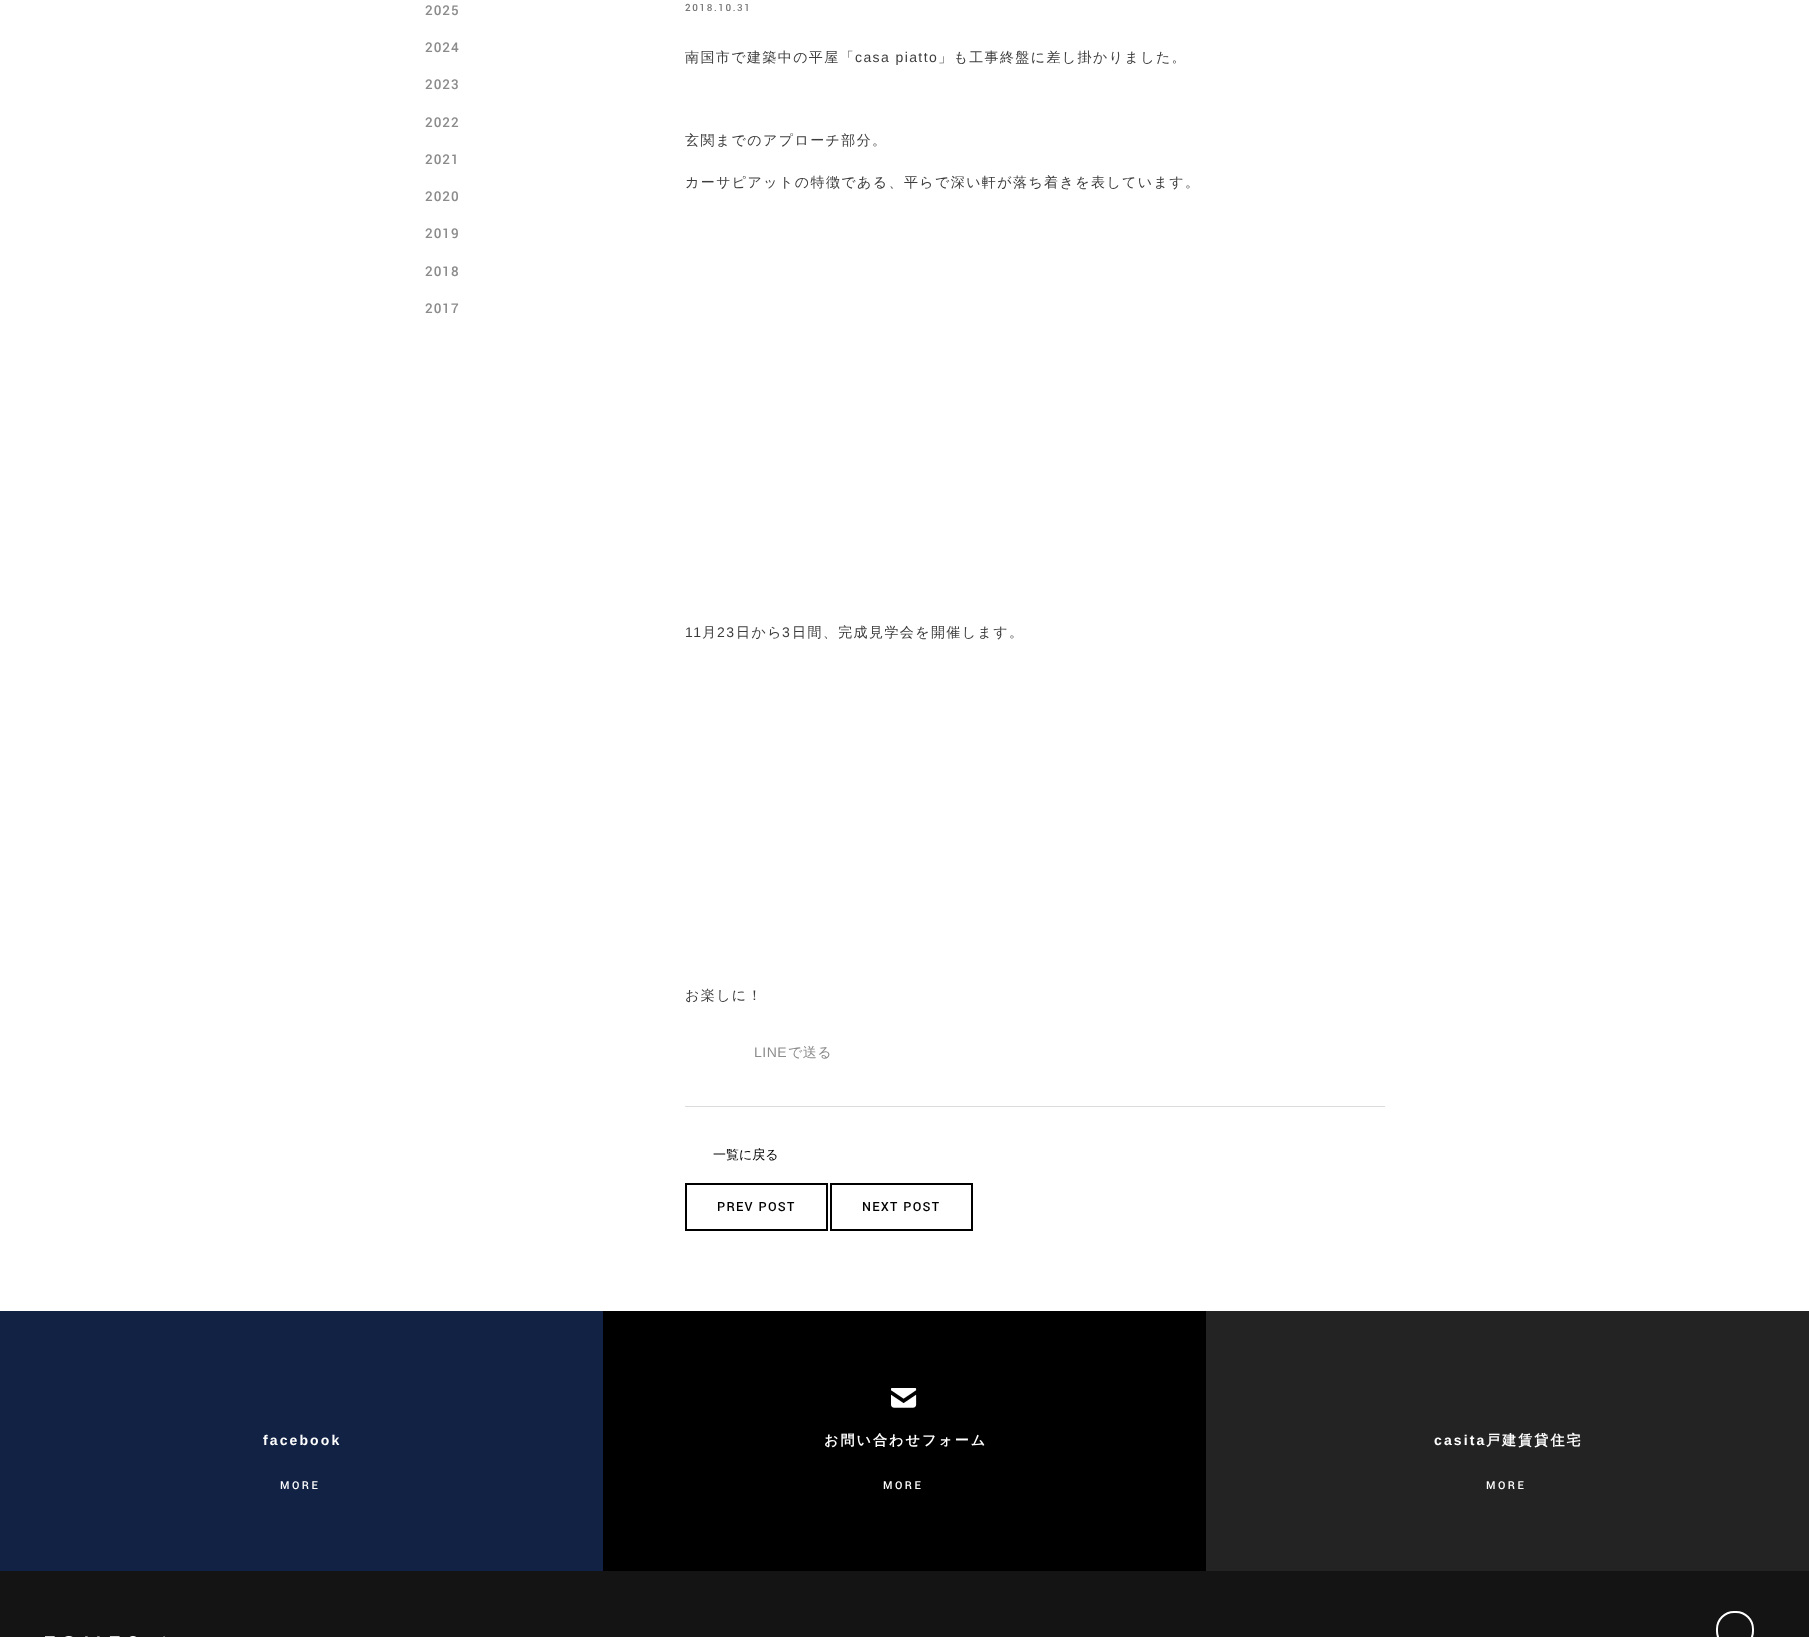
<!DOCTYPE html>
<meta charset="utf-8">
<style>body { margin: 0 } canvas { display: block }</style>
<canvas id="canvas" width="1809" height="1637"></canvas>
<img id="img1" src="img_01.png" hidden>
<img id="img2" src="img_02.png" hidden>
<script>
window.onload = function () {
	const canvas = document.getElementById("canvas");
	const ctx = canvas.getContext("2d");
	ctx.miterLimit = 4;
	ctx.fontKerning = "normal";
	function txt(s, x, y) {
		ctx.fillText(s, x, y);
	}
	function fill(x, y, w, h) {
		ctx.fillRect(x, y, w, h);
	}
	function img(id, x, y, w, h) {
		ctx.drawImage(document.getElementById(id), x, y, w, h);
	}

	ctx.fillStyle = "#FFFFFF";
	fill(0, 0, 1809, 1637);
	ctx.fillStyle = "#DCDCDC";
	fill(685, 1106, 700, 1);
	ctx.strokeStyle = "#000000";
	ctx.lineWidth = 2;
	ctx.strokeRect(686, 1184, 141, 46);
	ctx.strokeRect(831, 1184, 141, 46);
	ctx.fillStyle = "#112245";
	fill(0, 1311, 603, 260);
	ctx.fillStyle = "#000000";
	fill(603, 1311, 603, 260);
	img("img1", 891, 1388, 26, 20);
	ctx.fillStyle = "#232323";
	fill(1206, 1311, 603, 260);
	ctx.fillStyle = "#141414";
	fill(0, 1571, 1809, 66);
	img("img2", 45, 1636, 120, 1);
	ctx.beginPath();
	ctx.roundRect(1717, 1612, 36, 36, 17);
	ctx.strokeStyle = "#FFFFFF";
	ctx.stroke();
	ctx.letterSpacing = "1px";
	ctx.font = "500 15px Yantramanav";
	ctx.fillStyle = "#8C8C8C";
	txt("2025", 425, 15);
	txt("2024", 425, 52);
	txt("2023", 425, 89);
	txt("2022", 425, 127);
	txt("2021", 425, 164);
	txt("2020", 425, 201);
	txt("2019", 425, 238);
	txt("2018", 425, 276);
	txt("2017", 425, 313);
	ctx.letterSpacing = "1.6px";
	ctx.font = "500 11px Yantramanav";
	ctx.fillStyle = "#787878";
	txt("2018.10.31", 685, 11);
	ctx.letterSpacing = "1.4px";
	ctx.font = "500 14px WenQuanYi Zen Hei";
	ctx.fillStyle = "#3C3C3C";
	txt("南国市で建築中の平屋「", 685, 62);
	ctx.font = "14px Liberation Sans";
	txt("casa piatto", 855, 62);
	ctx.font = "500 14px WenQuanYi Zen Hei";
	txt("」も工事終盤に差し掛かりました。", 938, 62);
	txt("玄関までのアプローチ部分。", 685, 145);
	txt("カーサピアットの特徴である、平らで深い軒が落ち着きを表しています。", 685, 187);
	ctx.font = "14px Liberation Sans";
	txt("11", 685, 637);
	ctx.font = "500 14px WenQuanYi Zen Hei";
	txt("月", 702, 637);
	ctx.font = "14px Liberation Sans";
	txt("23", 717, 637);
	ctx.font = "500 14px WenQuanYi Zen Hei";
	txt("日から", 736, 637);
	ctx.font = "14px Liberation Sans";
	txt("3", 782, 637);
	ctx.font = "500 14px WenQuanYi Zen Hei";
	txt("日間、完成見学会を開催します。", 792, 637);
	txt("お楽しに！", 685, 1000);
	ctx.letterSpacing = "0.5px";
	ctx.font = "14px Liberation Sans";
	ctx.fillStyle = "#8C8C8C";
	txt("LINE", 754, 1057);
	ctx.font = "500 14px WenQuanYi Zen Hei";
	txt("で送る", 788, 1057);
	ctx.letterSpacing = "0px";
	ctx.font = "500 13px WenQuanYi Zen Hei";
	ctx.fillStyle = "#000000";
	txt("一覧に戻る", 713, 1159);
	ctx.letterSpacing = "1.25px";
	ctx.font = "500 14px Yantramanav";
	txt("PREV POST", 717, 1211);
	txt("NEXT POST", 862, 1211);
	ctx.letterSpacing = "2.1px";
	ctx.font = "bold 14px Liberation Sans";
	ctx.fillStyle = "#FFFFFF";
	txt("facebook", 263, 1445);
	ctx.letterSpacing = "2.5px";
	ctx.font = "500 12px Yantramanav";
	txt("MORE", 280, 1489);
	ctx.letterSpacing = "2.1px";
	ctx.font = "bold 14px WenQuanYi Zen Hei";
	txt("お問い合わせフォーム", 824, 1445);
	ctx.letterSpacing = "2.5px";
	ctx.font = "500 12px Yantramanav";
	txt("MORE", 883, 1489);
	ctx.letterSpacing = "2.1px";
	ctx.font = "bold 14px Liberation Sans";
	txt("casita", 1434, 1445);
	ctx.font = "bold 14px WenQuanYi Zen Hei";
	txt("戸建賃貸住宅", 1486, 1445);
	ctx.letterSpacing = "2.5px";
	ctx.font = "500 12px Yantramanav";
	txt("MORE", 1486, 1489);
};
</script>
